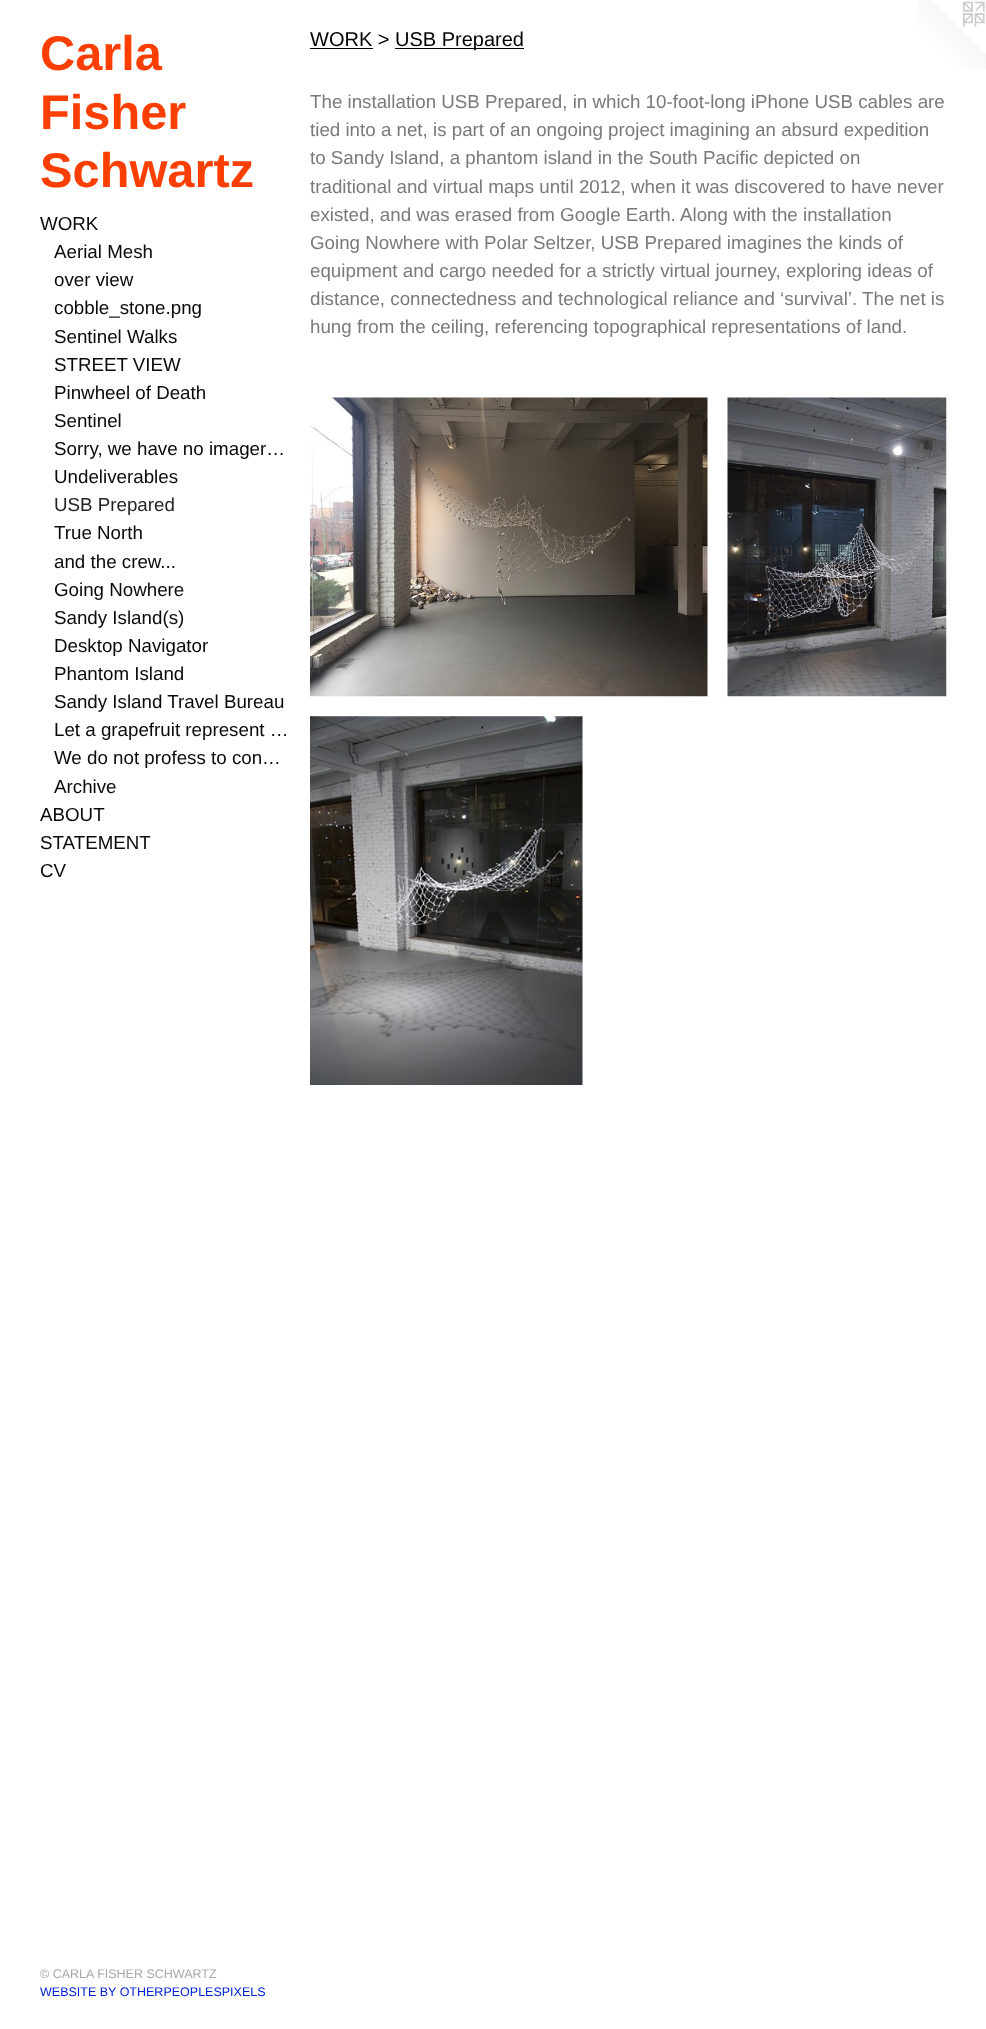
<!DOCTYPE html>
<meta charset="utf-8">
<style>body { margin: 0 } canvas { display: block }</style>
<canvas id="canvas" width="986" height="2029"></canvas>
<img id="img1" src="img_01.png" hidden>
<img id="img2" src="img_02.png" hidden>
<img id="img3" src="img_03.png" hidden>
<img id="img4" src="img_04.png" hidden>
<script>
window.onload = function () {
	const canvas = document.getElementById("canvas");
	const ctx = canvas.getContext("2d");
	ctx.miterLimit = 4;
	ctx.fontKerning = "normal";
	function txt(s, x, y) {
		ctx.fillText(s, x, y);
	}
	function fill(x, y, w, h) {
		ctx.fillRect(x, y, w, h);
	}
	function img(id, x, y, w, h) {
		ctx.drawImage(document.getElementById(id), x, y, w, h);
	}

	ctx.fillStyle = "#FFFFFF";
	fill(0, 0, 986, 2029);
	ctx.fillStyle = "#000000";
	fill(310, 48, 63, 1);
	fill(395, 48, 129, 1);
	img("img1", 310, 397, 398, 300);
	img("img2", 727, 397, 220, 300);
	img("img3", 310, 716, 273, 369);
	img("img4", 917, 0, 69, 69);
	ctx.font = "bold 48.75px Liberation Sans";
	ctx.fillStyle = "#FC3F00";
	txt("Carla", 40, 70);
	txt("Fisher", 40, 129);
	txt("Schwartz", 40, 187);
	ctx.font = "18.75px Liberation Sans";
	ctx.fillStyle = "#0A0A0A";
	txt("WORK", 40, 230);
	txt("Aerial Mesh", 54, 258);
	txt("over view", 54, 286);
	txt("cobble_stone.png", 54, 314);
	txt("Sentinel Walks", 54, 343);
	txt("STREET VIEW", 54, 371);
	txt("Pinwheel of Death", 54, 399);
	txt("Sentinel", 54, 427);
	txt("Sorry, we have no imager…", 54, 455);
	txt("Undeliverables", 54, 483);
	ctx.fillStyle = "#242424";
	txt("USB Prepared", 54, 511);
	ctx.fillStyle = "#0A0A0A";
	txt("True North", 54, 539);
	txt("and the crew...", 54, 568);
	txt("Going Nowhere", 54, 596);
	txt("Sandy Island(s)", 54, 624);
	txt("Desktop Navigator", 54, 652);
	txt("Phantom Island", 54, 680);
	txt("Sandy Island Travel Bureau", 54, 708);
	txt("Let a grapefruit represent …", 54, 736);
	txt("We do not profess to con…", 54, 764);
	txt("Archive", 54, 793);
	txt("ABOUT", 40, 821);
	txt("STATEMENT", 40, 849);
	txt("CV", 40, 877);
	ctx.font = "12.5px Liberation Sans";
	ctx.fillStyle = "#A7A8AE";
	txt("© CARLA FISHER SCHWARTZ", 40, 1978);
	ctx.fillStyle = "#0022D7";
	txt("WEBSITE BY OTHERPEOPLESPIXELS", 40, 1996);
	ctx.font = "20px Liberation Sans";
	ctx.fillStyle = "#000000";
	txt("WORK >", 310, 46);
	txt("USB Prepared", 395, 46);
	ctx.font = "18.75px Liberation Sans";
	ctx.fillStyle = "#7A7A7A";
	txt("The installation USB Prepared, in which 10-foot-long iPhone USB cables are", 310, 108);
	txt("tied into a net, is part of an ongoing project imagining an absurd expedition", 310, 136);
	txt("to Sandy Island, a phantom island in the South Pacific depicted on", 310, 164);
	txt("traditional and virtual maps until 2012, when it was discovered to have never", 310, 193);
	txt("existed, and was erased from Google Earth. Along with the installation", 310, 221);
	txt("Going Nowhere with Polar Seltzer, USB Prepared imagines the kinds of", 310, 249);
	txt("equipment and cargo needed for a strictly virtual journey, exploring ideas of", 310, 277);
	txt("distance, connectedness and technological reliance and ‘survival’. The net is", 310, 305);
	txt("hung from the ceiling, referencing topographical representations of land.", 310, 333);
};
</script>
